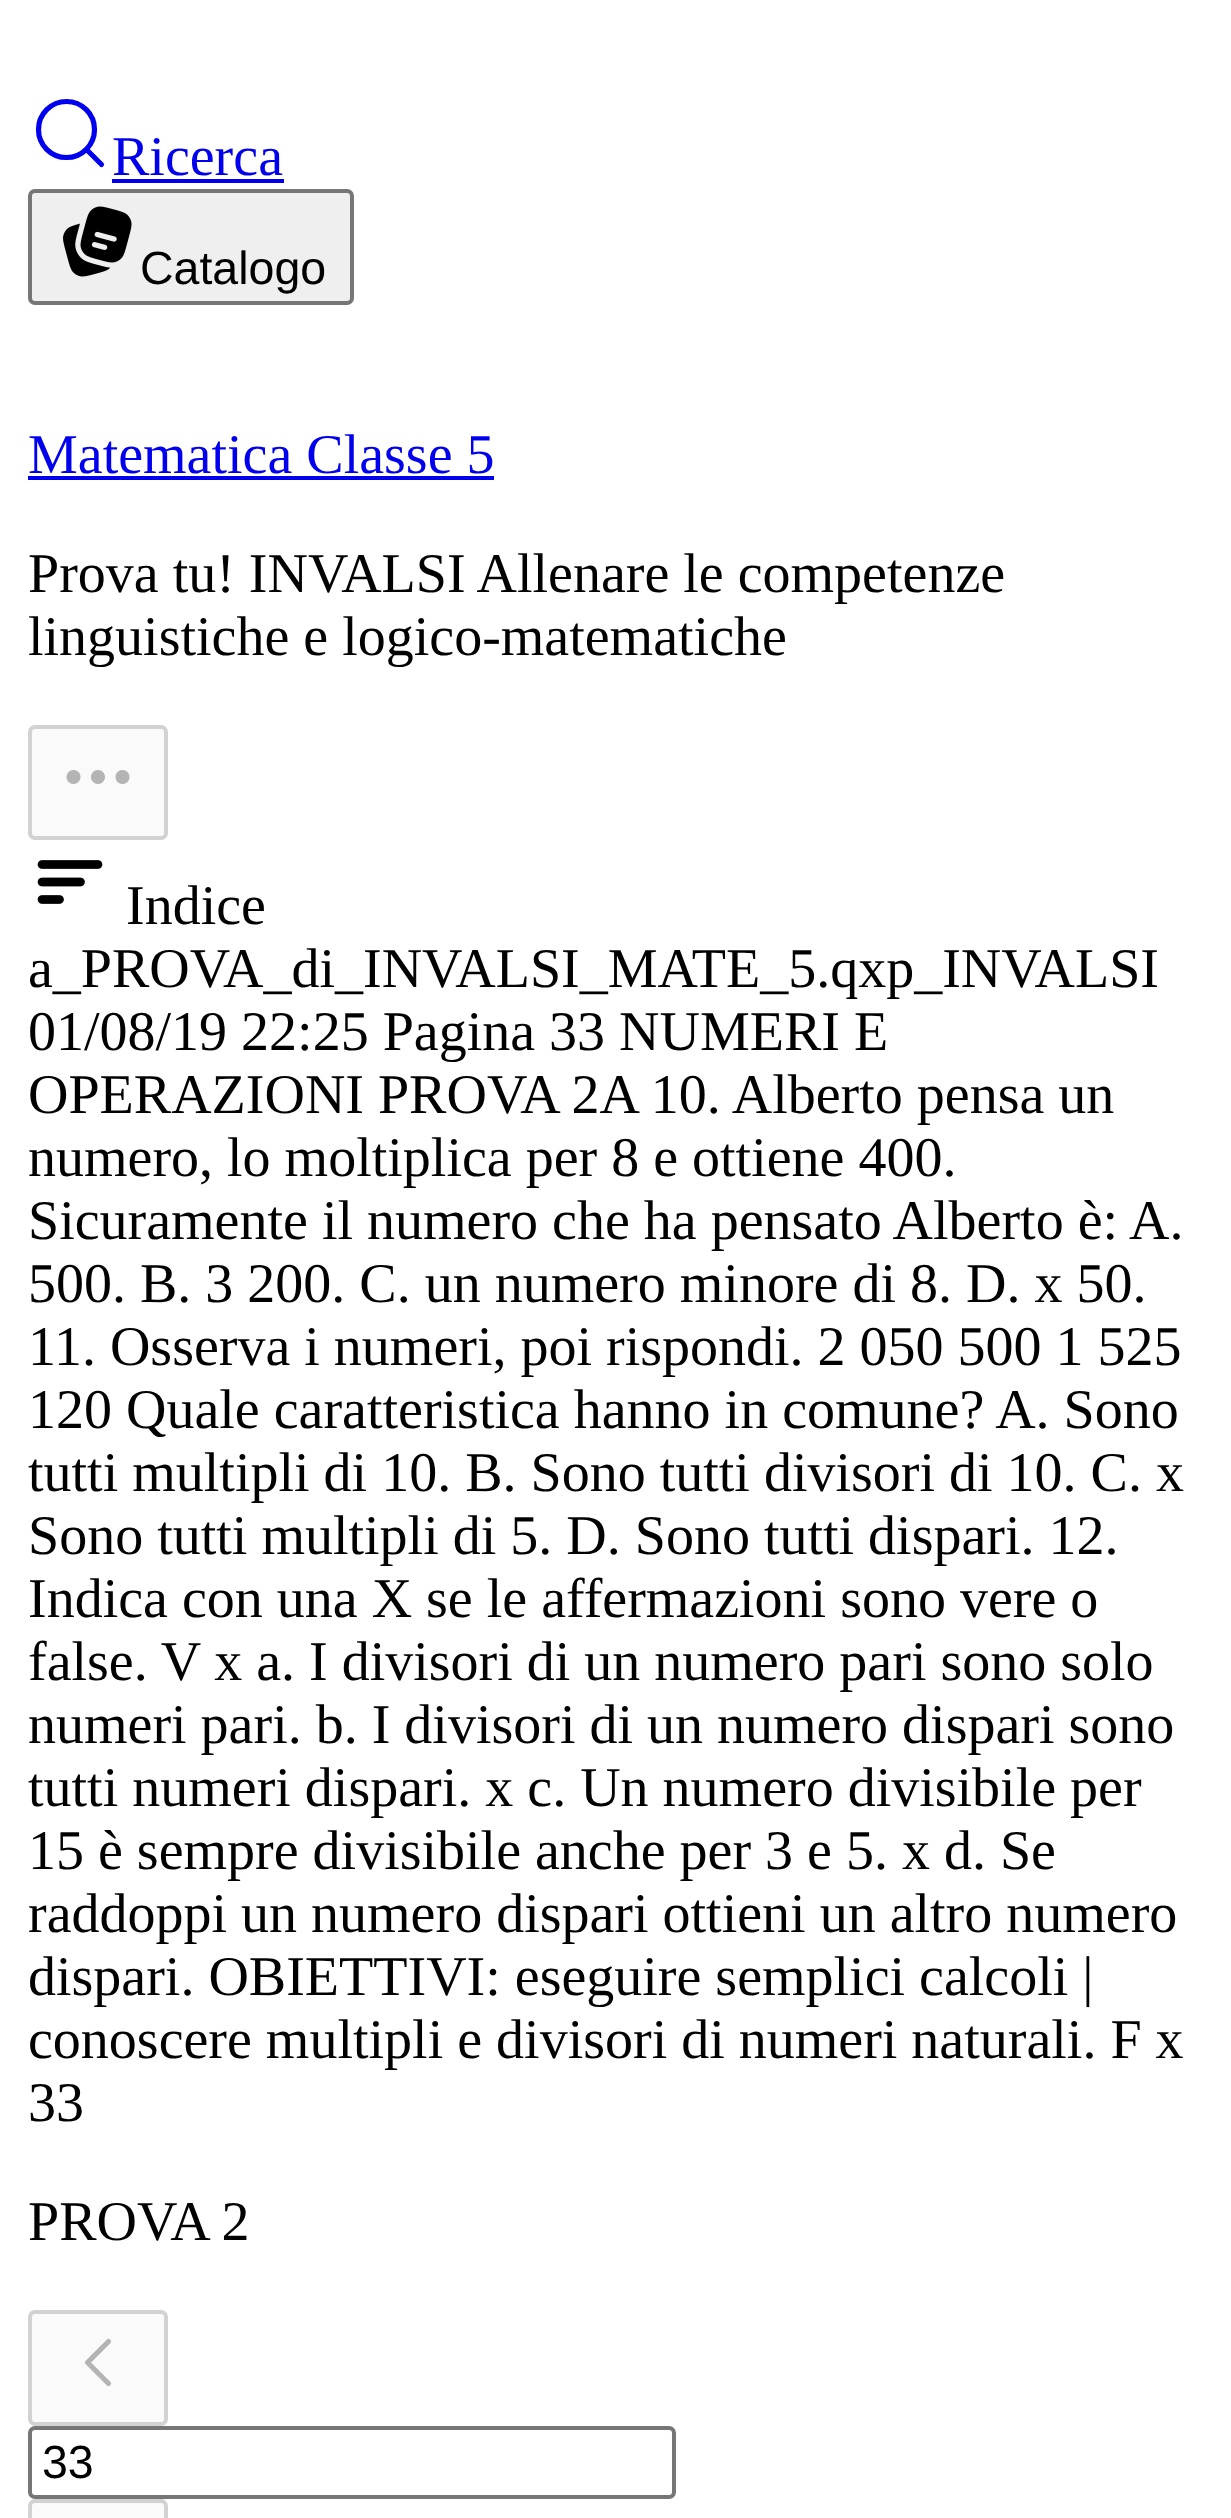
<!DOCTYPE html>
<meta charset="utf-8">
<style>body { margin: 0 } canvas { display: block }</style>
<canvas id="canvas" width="1231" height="2518"></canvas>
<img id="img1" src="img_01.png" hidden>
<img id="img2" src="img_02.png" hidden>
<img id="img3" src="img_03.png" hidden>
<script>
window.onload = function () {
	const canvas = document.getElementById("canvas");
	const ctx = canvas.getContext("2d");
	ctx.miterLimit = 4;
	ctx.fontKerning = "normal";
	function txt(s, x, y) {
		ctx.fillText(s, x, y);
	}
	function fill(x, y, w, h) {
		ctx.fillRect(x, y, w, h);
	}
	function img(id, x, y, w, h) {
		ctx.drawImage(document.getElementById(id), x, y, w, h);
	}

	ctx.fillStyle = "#FFFFFF";
	fill(0, 0, 1231, 2518);
	ctx.fillStyle = "#0000EE";
	fill(112, 179, 172, 4);
	ctx.beginPath();
	ctx.moveTo(66.5, 157.5);
	ctx.bezierCurveTo(82, 157.5, 94.5, 145, 94.5, 129.5);
	ctx.bezierCurveTo(94.5, 114, 82, 101.5, 66.5, 101.5);
	ctx.bezierCurveTo(51, 101.5, 38.5, 114, 38.5, 129.5);
	ctx.bezierCurveTo(38.5, 145, 51, 157.5, 66.5, 157.5);
	ctx.closePath();
	ctx.strokeStyle = "#0000EE";
	ctx.lineWidth = 5.2;
	ctx.lineCap = "round";
	ctx.lineJoin = "round";
	ctx.stroke();
	ctx.beginPath();
	ctx.moveTo(101.5, 164.5);
	ctx.lineTo(86.5, 149.5);
	ctx.stroke();
	ctx.fillStyle = "#EFEFEF";
	ctx.beginPath();
	ctx.roundRect(30, 191, 322, 112, 5);
	ctx.fill();
	ctx.strokeStyle = "#767676";
	ctx.lineWidth = 4;
	ctx.lineJoin = "miter";
	ctx.stroke();
	img("img1", 63, 206, 69, 71);
	ctx.fillStyle = "#0000EE";
	fill(28, 476, 466, 4);
	ctx.fillStyle = "#FAFAFA";
	ctx.beginPath();
	ctx.roundRect(30, 727, 136, 111, 5);
	ctx.fill();
	ctx.strokeStyle = "#D2D2D2";
	ctx.stroke();
	img("img2", 66, 770, 64, 14);
	img("img3", 37, 860, 66, 44);
	ctx.beginPath();
	ctx.roundRect(30, 2312, 136, 112, 5);
	ctx.fill();
	ctx.stroke();
	ctx.beginPath();
	ctx.moveTo(108.5, 2383.5);
	ctx.lineTo(87.5, 2362.5);
	ctx.lineTo(108.5, 2341.5);
	ctx.strokeStyle = "#B4B4B4";
	ctx.lineWidth = 5.2;
	ctx.lineJoin = "round";
	ctx.stroke();
	ctx.beginPath();
	ctx.roundRect(30, 2428, 644, 69, 5);
	ctx.strokeStyle = "#767676";
	ctx.lineWidth = 4;
	ctx.lineJoin = "miter";
	ctx.stroke();
	ctx.beginPath();
	ctx.roundRect(30, 2501, 136, 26, 5);
	ctx.fill();
	ctx.strokeStyle = "#D2D2D2";
	ctx.stroke();
	ctx.font = "56px Liberation Serif";
	ctx.fillStyle = "#0000EE";
	txt("Ricerca", 112, 175);
	ctx.font = "46.5px Liberation Sans";
	ctx.fillStyle = "#000000";
	txt("Catalogo", 140, 284);
	ctx.font = "56px Liberation Serif";
	ctx.fillStyle = "#0000EE";
	txt("Matematica Classe 5", 28, 473);
	ctx.fillStyle = "#000000";
	txt("Prova tu! INVALSI Allenare le competenze", 28, 592);
	txt("linguistiche e logico-matematiche", 28, 655);
	txt("Indice", 126, 924);
	txt("a_PROVA_di_INVALSI_MATE_5.qxp_INVALSI", 28, 987);
	txt("01/08/19 22:25 Pagina 33 NUMERI E", 28, 1050);
	txt("OPERAZIONI PROVA 2A 10. Alberto pensa un", 28, 1113);
	txt("numero, lo moltiplica per 8 e ottiene 400.", 28, 1176);
	txt("Sicuramente il numero che ha pensato Alberto è: A.", 28, 1239);
	txt("500. B. 3 200. C. un numero minore di 8. D. x 50.", 28, 1302);
	txt("11. Osserva i numeri, poi rispondi. 2 050 500 1 525", 28, 1365);
	txt("120 Quale caratteristica hanno in comune? A. Sono", 28, 1428);
	txt("tutti multipli di 10. B. Sono tutti divisori di 10. C. x", 28, 1491);
	txt("Sono tutti multipli di 5. D. Sono tutti dispari. 12.", 28, 1554);
	txt("Indica con una X se le affermazioni sono vere o", 28, 1617);
	txt("false. V x a. I divisori di un numero pari sono solo", 28, 1680);
	txt("numeri pari. b. I divisori di un numero dispari sono", 28, 1743);
	txt("tutti numeri dispari. x c. Un numero divisibile per", 28, 1806);
	txt("15 è sempre divisibile anche per 3 e 5. x d. Se", 28, 1869);
	txt("raddoppi un numero dispari ottieni un altro numero", 28, 1932);
	txt("dispari. OBIETTIVI: eseguire semplici calcoli |", 28, 1995);
	txt("conoscere multipli e divisori di numeri naturali. F x", 28, 2058);
	txt("33", 28, 2121);
	txt("PROVA 2", 28, 2240);
	ctx.font = "46.5px Liberation Sans";
	txt("33", 42, 2478);
};
</script>
